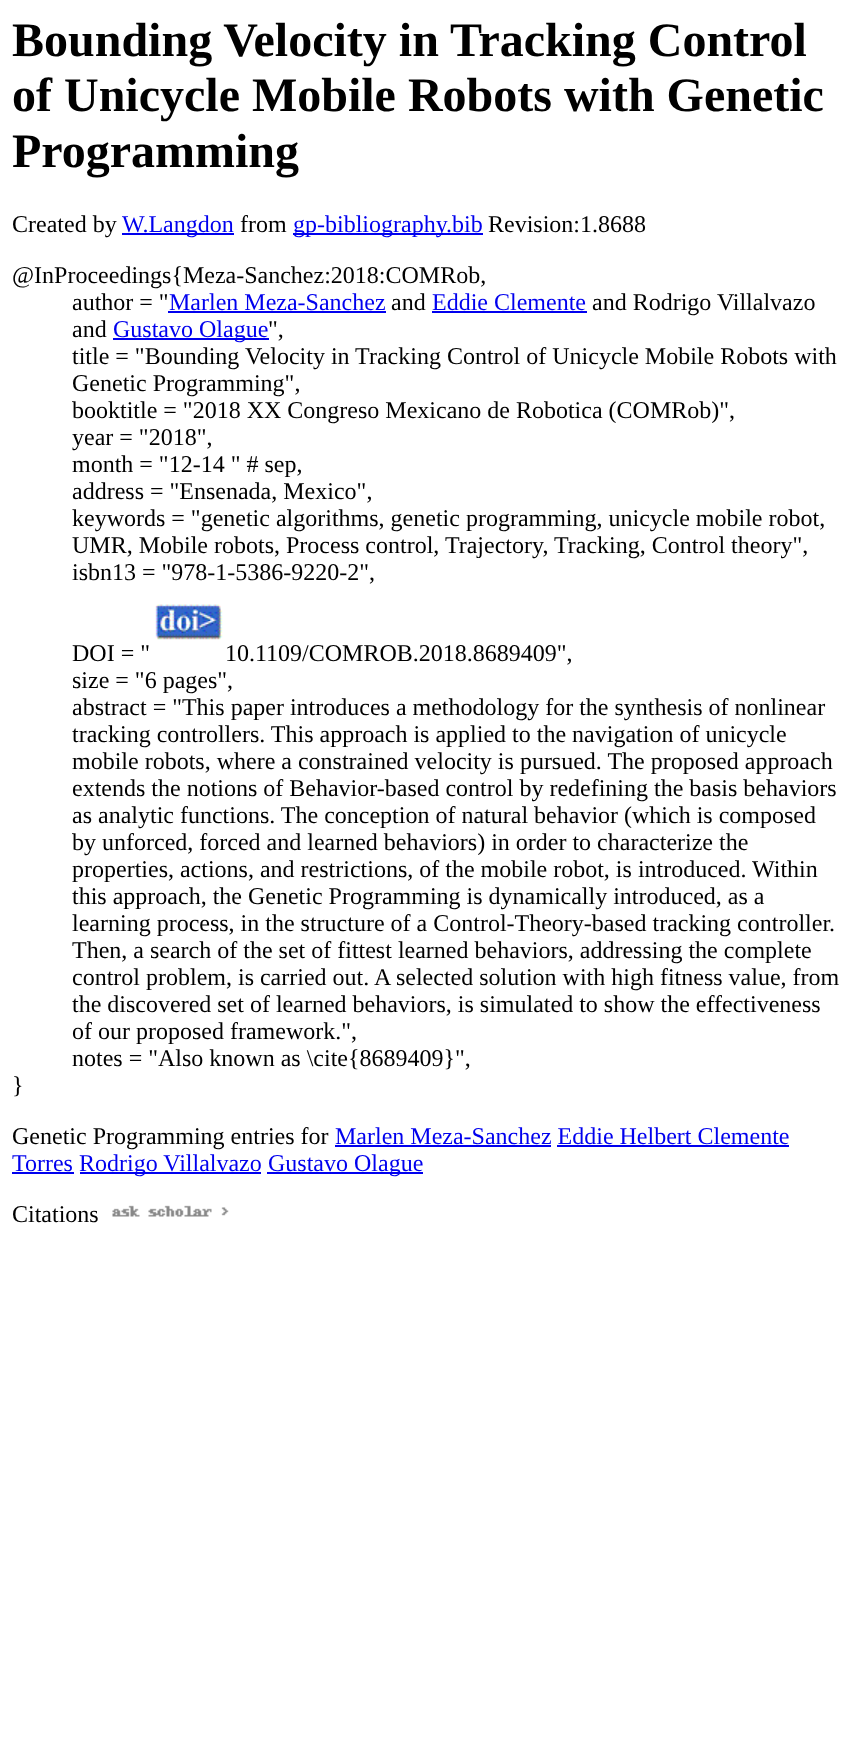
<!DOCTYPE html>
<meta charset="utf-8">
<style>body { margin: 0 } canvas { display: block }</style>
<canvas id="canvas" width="852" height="1743"></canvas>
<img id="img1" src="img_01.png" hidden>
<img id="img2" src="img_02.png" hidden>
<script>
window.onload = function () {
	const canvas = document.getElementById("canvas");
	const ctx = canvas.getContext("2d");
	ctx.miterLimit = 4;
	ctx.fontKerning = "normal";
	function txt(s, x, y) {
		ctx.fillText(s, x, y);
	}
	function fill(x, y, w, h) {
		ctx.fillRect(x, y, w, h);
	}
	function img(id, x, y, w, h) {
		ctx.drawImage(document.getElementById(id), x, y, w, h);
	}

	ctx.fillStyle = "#FFFFFF";
	fill(0, 0, 852, 1743);
	ctx.fillStyle = "#0000EE";
	fill(122, 233, 112, 2);
	fill(293, 233, 190, 2);
	fill(168, 311, 218, 2);
	fill(432, 311, 155, 2);
	fill(113, 338, 156, 2);
	img("img1", 155, 604, 68, 36);
	fill(335, 1145, 216, 2);
	fill(557, 1145, 232, 2);
	fill(12, 1172, 62, 2);
	fill(80, 1172, 181, 2);
	fill(267, 1172, 156, 2);
	img("img2", 112, 1205, 117, 12);
	ctx.font = "bold 48px Liberation Serif";
	ctx.fillStyle = "#000000";
	txt("Bounding Velocity in Tracking Control", 12, 56);
	txt("of Unicycle Mobile Robots with Genetic", 12, 111);
	txt("Programming", 12, 167);
	ctx.font = "24px Liberation Serif";
	txt("Created by", 12, 232);
	ctx.fillStyle = "#0000EE";
	txt("W.Langdon", 122, 232);
	ctx.fillStyle = "#000000";
	txt("from", 240, 232);
	ctx.fillStyle = "#0000EE";
	txt("gp-bibliography.bib", 293, 232);
	ctx.fillStyle = "#000000";
	txt("Revision:1.8688", 488, 232);
	txt("@InProceedings{Meza-Sanchez:2018:COMRob,", 12, 283);
	txt("author = \"", 72, 310);
	ctx.fillStyle = "#0000EE";
	txt("Marlen Meza-Sanchez", 169, 310);
	ctx.fillStyle = "#000000";
	txt("and", 391, 310);
	ctx.fillStyle = "#0000EE";
	txt("Eddie Clemente", 432, 310);
	ctx.fillStyle = "#000000";
	txt("and Rodrigo Villalvazo", 592, 310);
	txt("and", 72, 337);
	ctx.fillStyle = "#0000EE";
	txt("Gustavo Olague", 113, 337);
	ctx.fillStyle = "#000000";
	txt("\",", 268, 337);
	txt("title = \"Bounding Velocity in Tracking Control of Unicycle Mobile Robots with", 72, 364);
	txt("Genetic Programming\",", 72, 391);
	txt("booktitle = \"2018 XX Congreso Mexicano de Robotica (COMRob)\",", 72, 418);
	txt("year = \"2018\",", 72, 445);
	txt("month = \"12-14 \" # sep,", 72, 472);
	txt("address = \"Ensenada, Mexico\",", 72, 499);
	txt("keywords = \"genetic algorithms, genetic programming, unicycle mobile robot,", 72, 526);
	txt("UMR, Mobile robots, Process control, Trajectory, Tracking, Control theory\",", 72, 553);
	txt("isbn13 = \"978-1-5386-9220-2\",", 72, 580);
	txt("DOI = \"", 72, 661);
	txt("10.1109/COMROB.2018.8689409\",", 225, 661);
	txt("size = \"6 pages\",", 72, 688);
	txt("abstract = \"This paper introduces a methodology for the synthesis of nonlinear", 72, 715);
	txt("tracking controllers. This approach is applied to the navigation of unicycle", 72, 742);
	txt("mobile robots, where a constrained velocity is pursued. The proposed approach", 72, 769);
	txt("extends the notions of Behavior-based control by redefining the basis behaviors", 72, 796);
	txt("as analytic functions. The conception of natural behavior (which is composed", 72, 823);
	txt("by unforced, forced and learned behaviors) in order to characterize the", 72, 850);
	txt("properties, actions, and restrictions, of the mobile robot, is introduced. Within", 72, 877);
	txt("this approach, the Genetic Programming is dynamically introduced, as a", 72, 904);
	txt("learning process, in the structure of a Control-Theory-based tracking controller.", 72, 931);
	txt("Then, a search of the set of fittest learned behaviors, addressing the complete", 72, 958);
	txt("control problem, is carried out. A selected solution with high fitness value, from", 72, 985);
	txt("the discovered set of learned behaviors, is simulated to show the effectiveness", 72, 1012);
	txt("of our proposed framework.\",", 72, 1039);
	txt("notes = \"Also known as \\cite{8689409}\",", 72, 1066);
	txt("}", 12, 1093);
	txt("Genetic Programming entries for", 12, 1144);
	ctx.fillStyle = "#0000EE";
	txt("Marlen Meza-Sanchez Eddie Helbert Clemente", 335, 1144);
	txt("Torres", 12, 1171);
	txt("Rodrigo Villalvazo", 79, 1171);
	txt("Gustavo Olague", 268, 1171);
	ctx.fillStyle = "#000000";
	txt("Citations", 12, 1222);
};
</script>
